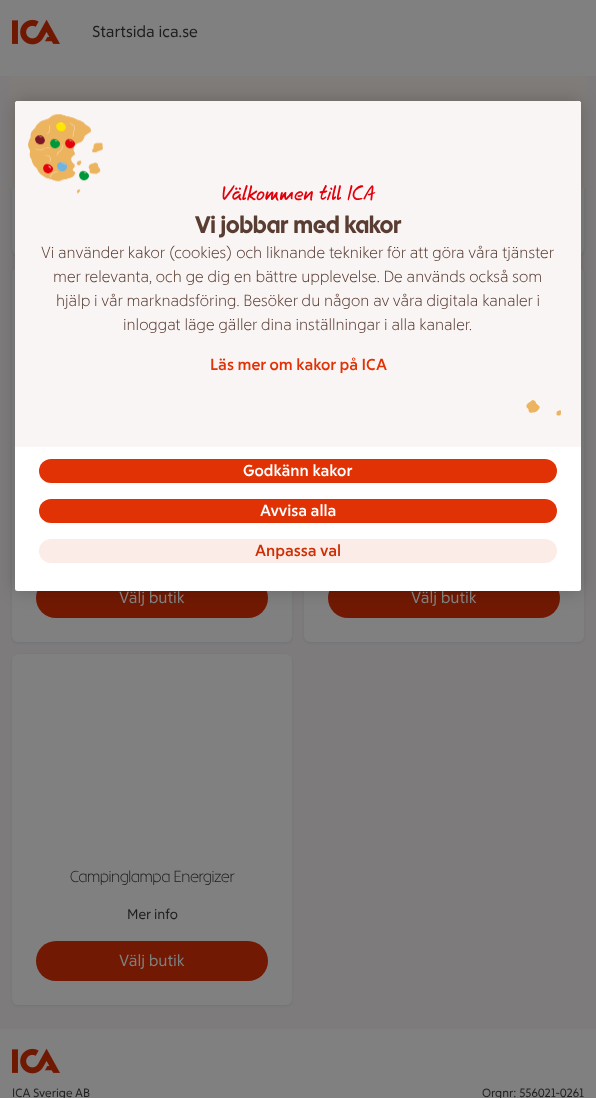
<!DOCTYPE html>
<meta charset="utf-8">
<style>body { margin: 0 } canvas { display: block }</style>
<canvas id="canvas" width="596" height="1098"></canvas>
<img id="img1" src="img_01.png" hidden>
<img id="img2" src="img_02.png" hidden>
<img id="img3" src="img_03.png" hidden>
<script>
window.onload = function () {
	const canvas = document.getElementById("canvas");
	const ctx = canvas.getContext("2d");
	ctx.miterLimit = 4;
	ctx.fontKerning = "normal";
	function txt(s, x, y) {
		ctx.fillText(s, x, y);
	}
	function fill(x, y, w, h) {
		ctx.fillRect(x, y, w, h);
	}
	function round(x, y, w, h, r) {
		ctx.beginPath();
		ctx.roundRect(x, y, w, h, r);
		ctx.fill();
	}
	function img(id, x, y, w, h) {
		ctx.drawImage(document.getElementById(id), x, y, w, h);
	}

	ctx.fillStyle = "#7D7B7B";
	fill(0, 0, 596, 1098);
	ctx.fillStyle = "#717478";
	ctx.filter = "blur(1px)";
	ctx.beginPath();
	ctx.roundRect(12, -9, 280, 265, 6);
	ctx.fill();
	ctx.filter = "none";
	ctx.fillStyle = "#808080";
	round(12, -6, 280, 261, 6);
	ctx.fillStyle = "#717478";
	ctx.filter = "blur(1px)";
	ctx.beginPath();
	ctx.roundRect(304, -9, 280, 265, 6);
	ctx.fill();
	ctx.filter = "none";
	ctx.fillStyle = "#808080";
	round(304, -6, 280, 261, 6);
	fill(0, 0, 596, 76);
	img("img1", 12, 19, 48, 26);
	ctx.fillStyle = "#7F7C7A";
	fill(10, 76, 576, 112);
	ctx.fillStyle = "#717478";
	ctx.filter = "blur(1px)";
	ctx.beginPath();
	ctx.roundRect(12, 268, 280, 375, 6);
	ctx.fill();
	ctx.filter = "none";
	ctx.fillStyle = "#808080";
	round(12, 267, 280, 375, 6);
	ctx.fillStyle = "#711903";
	round(36, 578, 232, 40, 20);
	ctx.fillStyle = "#717478";
	ctx.filter = "blur(1px)";
	ctx.beginPath();
	ctx.roundRect(304, 268, 280, 375, 6);
	ctx.fill();
	ctx.filter = "none";
	ctx.fillStyle = "#808080";
	round(304, 267, 280, 375, 6);
	ctx.fillStyle = "#711903";
	round(328, 578, 232, 40, 20);
	ctx.fillStyle = "#717478";
	ctx.filter = "blur(1px)";
	ctx.beginPath();
	ctx.roundRect(12, 655, 280, 351, 6);
	ctx.fill();
	ctx.filter = "none";
	ctx.fillStyle = "#808080";
	round(12, 654, 280, 351, 6);
	ctx.fillStyle = "#711903";
	round(36, 941, 232, 40, 20);
	ctx.fillStyle = "#808080";
	fill(0, 1029, 596, 69);
	img("img1", 12, 1048, 48, 26);
	ctx.fillStyle = "rgba(0, 0, 0, 0.2)";
	ctx.filter = "blur(9px)";
	ctx.beginPath();
	ctx.roundRect(15, 101, 566, 490, 2.5);
	ctx.fill();
	ctx.filter = "none";
	ctx.fillStyle = "#FFFFFF";
	round(15, 101, 566, 490, 2.5);
	ctx.fillStyle = "#F9F5F5";
	ctx.beginPath();
	ctx.roundRect(15, 101, 566, 346, [2.5, 2.5, 0, 0]);
	ctx.fill();
	img("img2", 28, 114, 75, 80);
	img("img3", 526, 400, 35, 16);
	ctx.fillStyle = "#E13205";
	round(39, 459, 518, 24, 12);
	round(39, 499, 518, 24, 12);
	ctx.fillStyle = "#FCECE7";
	round(39, 539, 518, 24, 12);
	ctx.font = "16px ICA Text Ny";
	ctx.fillStyle = "#1D1D1D";
	txt("Startsida ica.se", 92, 37);
	ctx.fillStyle = "#808080";
	txt("Välj butik", 119, 603);
	txt("Välj butik", 411, 603);
	ctx.font = "300 16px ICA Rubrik";
	ctx.fillStyle = "#1D1D1D";
	txt("Campinglampa Energizer", 70, 882);
	ctx.font = "14px ICA Text Ny";
	txt("Mer info", 127, 919);
	ctx.font = "16px ICA Text Ny";
	ctx.fillStyle = "#808080";
	txt("Välj butik", 119, 966);
	ctx.font = "12px ICA Text Ny";
	ctx.fillStyle = "#1D1D1D";
	txt("ICA Sverige AB", 12, 1097);
	txt("Orgnr: 556021-0261", 482, 1097);
	ctx.font = "italic 20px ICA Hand";
	ctx.fillStyle = "#E3000B";
	txt("Välkommen till ICA", 221, 200);
	ctx.font = "bold 24px ICA Rubrik";
	ctx.fillStyle = "#593D32";
	txt("Vi jobbar med kakor", 195, 233);
	ctx.font = "300 16px ICA Text Ny";
	txt("Vi använder kakor (cookies) och liknande tekniker för att göra våra tjänster", 41, 258);
	txt("mer relevanta, och ge dig en bättre upplevelse. De används också som", 53, 282);
	txt("hjälp i vår marknadsföring. Besöker du någon av våra digitala kanaler i", 56, 306);
	txt("inloggat läge gäller dina inställningar i alla kanaler.", 123, 330);
	ctx.font = "bold 16px ICA Text Ny";
	ctx.fillStyle = "#E13205";
	txt("Läs mer om kakor på ICA", 210, 370);
	ctx.fillStyle = "#FFFFFF";
	txt("Godkänn kakor", 243, 476);
	txt("Avvisa alla", 260, 516);
	ctx.fillStyle = "#CF2E05";
	txt("Anpassa val", 255, 556);
};
</script>
